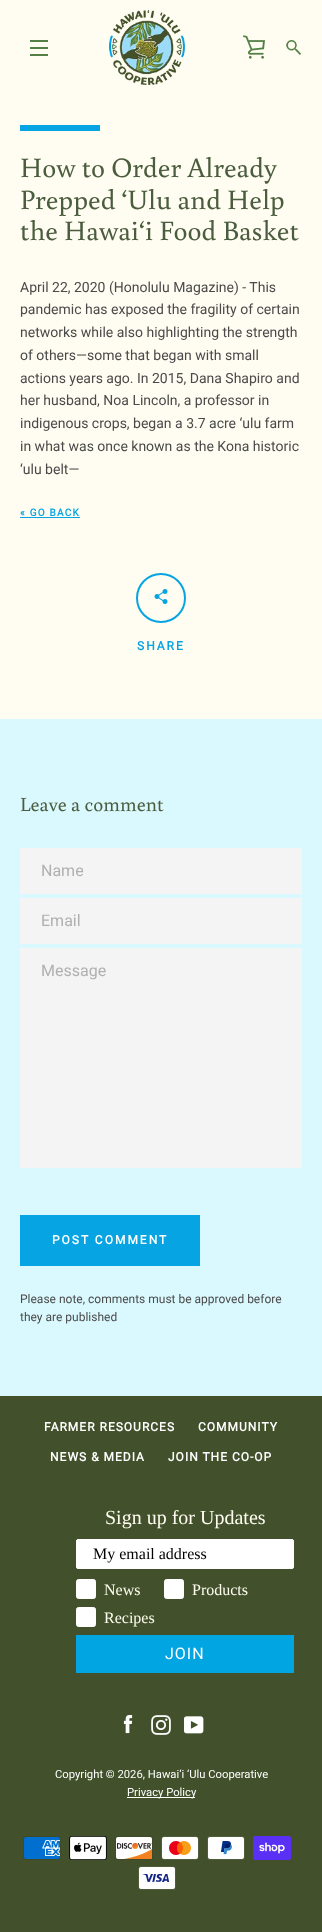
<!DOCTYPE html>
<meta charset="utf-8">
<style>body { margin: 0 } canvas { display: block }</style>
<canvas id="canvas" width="322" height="1932"></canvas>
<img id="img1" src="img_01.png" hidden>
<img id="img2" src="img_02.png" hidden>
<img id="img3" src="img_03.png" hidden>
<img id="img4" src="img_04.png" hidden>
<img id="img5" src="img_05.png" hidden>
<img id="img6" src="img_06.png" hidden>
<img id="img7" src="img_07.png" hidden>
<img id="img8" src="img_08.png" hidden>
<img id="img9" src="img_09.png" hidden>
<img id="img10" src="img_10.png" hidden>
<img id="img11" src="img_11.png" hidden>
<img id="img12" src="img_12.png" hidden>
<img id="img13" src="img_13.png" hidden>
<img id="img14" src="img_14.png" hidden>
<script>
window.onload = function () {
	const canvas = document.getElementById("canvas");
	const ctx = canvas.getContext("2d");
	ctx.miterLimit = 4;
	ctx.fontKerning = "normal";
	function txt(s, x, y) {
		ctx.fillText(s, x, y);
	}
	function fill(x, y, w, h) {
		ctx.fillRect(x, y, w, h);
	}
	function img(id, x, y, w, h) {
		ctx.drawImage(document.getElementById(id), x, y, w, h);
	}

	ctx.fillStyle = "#FFFDF1";
	fill(0, 0, 322, 1932);
	ctx.fillStyle = "#548045";
	fill(30, 40, 18, 2);
	fill(30, 47, 18, 2);
	fill(30, 54, 18, 2);
	img("img1", 109, 10, 76, 75);
	img("img2", 243, 35, 22, 24);
	img("img3", 286, 40, 16, 15);
	ctx.fillStyle = "#06A4E3";
	fill(20, 125, 80, 6);
	fill(20, 517, 60, 1);
	ctx.beginPath();
	ctx.arc(161, 598, 24, 0, Math.PI * 2);
	ctx.strokeStyle = "#06A4E3";
	ctx.lineWidth = 2;
	ctx.stroke();
	img("img4", 154, 589, 14, 15);
	ctx.fillStyle = "#DAF9FF";
	fill(0, 719, 322, 677);
	ctx.fillStyle = "#F3F4F3";
	fill(20, 848, 282, 46);
	fill(20, 898, 282, 46);
	fill(20, 948, 282, 220);
	ctx.fillStyle = "#06A4E3";
	fill(20, 1215, 180, 51);
	ctx.fillStyle = "#42512C";
	fill(0, 1396, 322, 536);
	ctx.fillStyle = "#FFFFFF";
	ctx.beginPath();
	ctx.roundRect(76.5, 1539.5, 217, 29, 1.5);
	ctx.fill();
	ctx.strokeStyle = "#FFFFFF";
	ctx.lineWidth = 1;
	ctx.stroke();
	ctx.beginPath();
	ctx.roundRect(76.5, 1579.5, 19, 19, 2);
	ctx.fill();
	ctx.stroke();
	ctx.beginPath();
	ctx.roundRect(164.5, 1579.5, 19, 19, 2);
	ctx.fill();
	ctx.stroke();
	ctx.beginPath();
	ctx.roundRect(76.5, 1607.5, 19, 19, 2);
	ctx.fill();
	ctx.stroke();
	ctx.fillStyle = "#00A5E2";
	fill(76, 1635, 218, 38);
	img("img5", 123, 1715, 10, 19);
	img("img6", 151, 1715, 20, 20);
	img("img7", 184, 1716, 20, 18);
	ctx.fillStyle = "#FFFFFF";
	fill(127, 1797, 68, 1);
	img("img8", 23, 1836, 38, 24);
	img("img9", 69, 1836, 38, 24);
	img("img10", 115, 1836, 38, 24);
	img("img11", 161, 1836, 38, 24);
	img("img12", 207, 1836, 38, 24);
	img("img13", 253, 1836, 38, 24);
	img("img14", 138, 1866, 38, 24);
	ctx.font = "28px Buenard";
	ctx.fillStyle = "#4B5D3E";
	txt("How to Order Already", 20, 177);
	txt("Prepped ‘Ulu and Help", 20, 209);
	txt("the Hawai‘i Food Basket", 20, 240);
	ctx.font = "14px Roboto";
	ctx.fillStyle = "#4A4A4A";
	txt("April 22, 2020 (Honolulu Magazine) - This", 20, 292);
	txt("pandemic has exposed the fragility of certain", 20, 314);
	txt("networks while also highlighting the strength", 20, 337);
	txt("of others—some that began with small", 20, 360);
	txt("actions years ago. In 2015, Dana Shapiro and", 20, 383);
	txt("her husband, Noa Lincoln, a professor in", 20, 405);
	txt("indigenous crops, began a 3.7 acre ‘ulu farm", 20, 428);
	txt("in what was once known as the Kona historic", 20, 451);
	txt("‘ulu belt—", 20, 474);
	ctx.letterSpacing = "1.25px";
	ctx.font = "bold 10px Roboto";
	ctx.fillStyle = "#06A4E3";
	txt("« GO BACK", 20, 516);
	ctx.letterSpacing = "2px";
	ctx.font = "bold 12px Roboto";
	txt("SHARE", 137, 650);
	ctx.letterSpacing = "0px";
	ctx.font = "20px Buenard";
	ctx.fillStyle = "#4B5D3E";
	txt("Leave a comment", 20, 811);
	ctx.font = "16px Roboto";
	ctx.fillStyle = "#AFB0AF";
	txt("Name", 41, 876);
	txt("Email", 41, 926);
	txt("Message", 41, 976);
	ctx.letterSpacing = "2px";
	ctx.font = "bold 12px Roboto";
	ctx.fillStyle = "#FFFFFF";
	txt("POST COMMENT", 52, 1244);
	ctx.letterSpacing = "0px";
	ctx.font = "12px Roboto";
	ctx.fillStyle = "#4A4A4A";
	txt("Please note, comments must be approved before", 20, 1303);
	txt("they are published", 20, 1321);
	ctx.letterSpacing = "1px";
	ctx.font = "bold 12px Roboto";
	ctx.fillStyle = "#FFFFFF";
	txt("FARMER RESOURCES", 44, 1431);
	txt("COMMUNITY", 198, 1431);
	txt("NEWS & MEDIA", 50, 1461);
	txt("JOIN THE CO-OP", 168, 1461);
	ctx.letterSpacing = "0px";
	ctx.font = "20px Liberation Serif";
	ctx.fillStyle = "#FFFDF1";
	txt("Sign up for Updates", 105, 1524);
	ctx.font = "16px Liberation Serif";
	ctx.fillStyle = "#000000";
	txt("My email address", 93, 1559);
	ctx.fillStyle = "#FFFDF1";
	txt("News", 104, 1595);
	txt("Products", 192, 1595);
	txt("Recipes", 104, 1623);
	ctx.letterSpacing = "1px";
	ctx.font = "16px Roboto";
	ctx.fillStyle = "#FFFFFF";
	txt("JOIN", 165, 1659);
	ctx.letterSpacing = "0px";
	ctx.font = "11.25px Roboto";
	txt("Copyright © 2026, Hawai‘i ‘Ulu Cooperative", 55, 1778);
	txt("Privacy Policy", 127, 1796);
};
</script>
